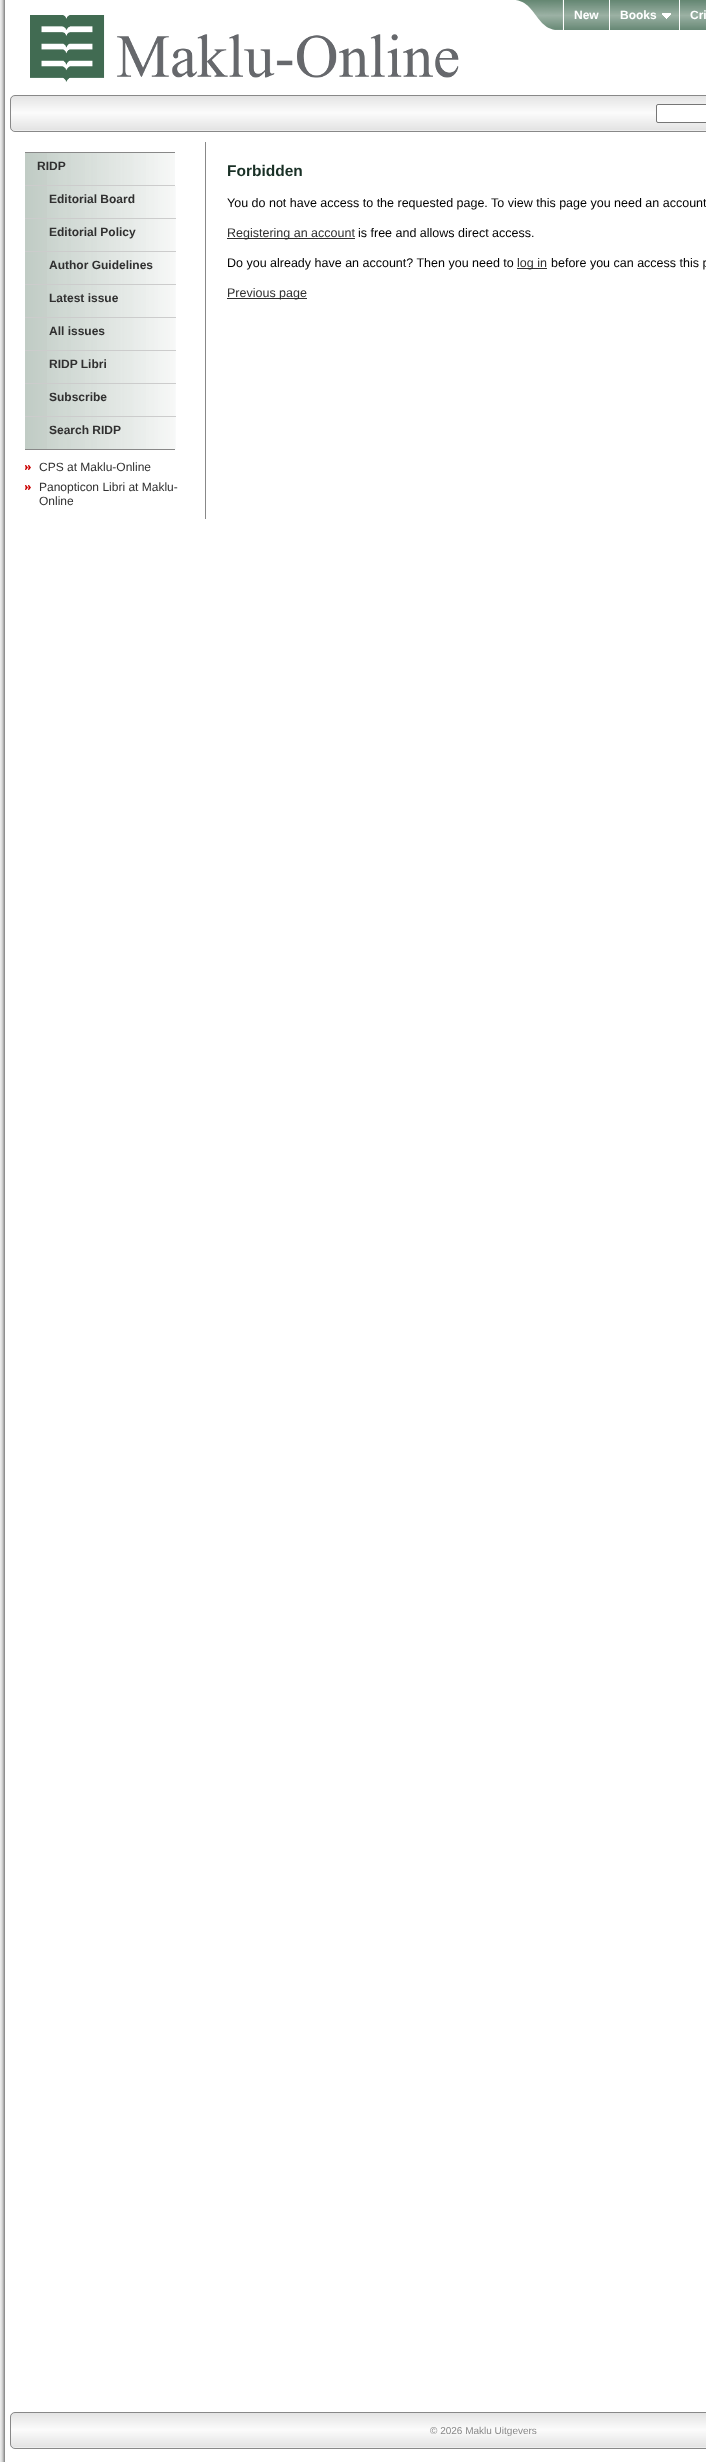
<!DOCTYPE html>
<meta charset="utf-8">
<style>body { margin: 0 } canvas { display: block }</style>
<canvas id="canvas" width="706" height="2462"></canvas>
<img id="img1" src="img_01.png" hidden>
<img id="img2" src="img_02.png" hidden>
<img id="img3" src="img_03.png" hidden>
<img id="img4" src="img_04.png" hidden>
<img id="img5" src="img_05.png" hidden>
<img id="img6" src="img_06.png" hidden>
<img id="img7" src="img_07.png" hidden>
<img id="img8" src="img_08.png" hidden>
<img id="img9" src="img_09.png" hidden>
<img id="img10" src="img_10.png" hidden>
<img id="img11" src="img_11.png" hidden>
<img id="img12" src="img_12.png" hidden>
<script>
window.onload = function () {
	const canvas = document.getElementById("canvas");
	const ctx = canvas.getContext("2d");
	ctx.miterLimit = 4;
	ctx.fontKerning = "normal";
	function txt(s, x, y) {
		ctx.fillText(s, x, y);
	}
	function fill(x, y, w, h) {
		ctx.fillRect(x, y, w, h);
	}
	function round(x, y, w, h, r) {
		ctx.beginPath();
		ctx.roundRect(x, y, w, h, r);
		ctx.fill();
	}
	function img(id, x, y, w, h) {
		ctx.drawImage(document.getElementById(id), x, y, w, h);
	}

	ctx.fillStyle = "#FFFFFF";
	fill(0, 0, 706, 2462);
	img("img1", 0, 0, 5, 2462);
	img("img2", 516, 0, 47, 30);
	img("img3", 564, 0, 45, 30);
	img("img4", 610, 0, 69, 30);
	img("img5", 662, 13, 9, 6);
	img("img6", 680, 0, 26, 30);
	img("img7", 30, 15, 429, 67);
	ctx.fillStyle = "#EEEEEE";
	round(10, 95, 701, 37, 5);
	img("img8", 10, 96, 696, 34);
	ctx.beginPath();
	ctx.roundRect(10.5, 95.5, 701, 36, 4.5);
	ctx.strokeStyle = "#888888";
	ctx.stroke();
	ctx.fillStyle = "#FFFFFF";
	ctx.beginPath();
	ctx.roundRect(656.5, 104.5, 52, 18, 1.5);
	ctx.fill();
	ctx.strokeStyle = "#767676";
	ctx.stroke();
	ctx.fillStyle = "#888888";
	fill(205, 142, 1, 377);
	ctx.fillStyle = "#EEEEEE";
	fill(25, 153, 22, 296);
	img("img9", 47, 153, 128, 296);
	ctx.fillStyle = "#888888";
	fill(25, 152, 150, 1);
	fill(25, 449, 150, 1);
	img("img10", 25, 153, 150, 32);
	ctx.fillStyle = "#CCCCCC";
	fill(25, 185, 150, 1);
	img("img11", 25, 186, 151, 32);
	fill(25, 218, 151, 1);
	img("img11", 25, 219, 151, 32);
	fill(25, 251, 151, 1);
	img("img11", 25, 252, 151, 32);
	fill(25, 284, 151, 1);
	img("img11", 25, 285, 151, 32);
	fill(25, 317, 151, 1);
	img("img11", 25, 318, 151, 32);
	fill(25, 350, 151, 1);
	img("img11", 25, 351, 151, 32);
	fill(25, 383, 151, 1);
	img("img11", 25, 384, 151, 32);
	fill(25, 416, 151, 1);
	img("img11", 25, 417, 151, 32);
	img("img12", 25, 465, 6, 5);
	img("img12", 25, 485, 6, 5);
	ctx.fillStyle = "#303030";
	fill(227, 238, 128, 1);
	fill(517, 268, 30, 1);
	fill(227, 298, 80, 1);
	ctx.fillStyle = "#EEEEEE";
	round(10, 2412, 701, 37, 5);
	img("img8", 10, 2413, 696, 34);
	ctx.beginPath();
	ctx.roundRect(10.5, 2412.5, 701, 36, 4.5);
	ctx.strokeStyle = "#888888";
	ctx.stroke();
	ctx.font = "bold 12px Liberation Sans";
	ctx.fillStyle = "#FFFFFF";
	txt("New", 574, 19);
	txt("Books", 620, 19);
	txt("Cri", 690, 19);
	ctx.fillStyle = "#303030";
	txt("RIDP", 37, 170);
	txt("Editorial Board", 49, 203);
	txt("Editorial Policy", 49, 236);
	txt("Author Guidelines", 49, 269);
	txt("Latest issue", 49, 302);
	txt("All issues", 49, 335);
	txt("RIDP Libri", 49, 368);
	txt("Subscribe", 49, 401);
	txt("Search RIDP", 49, 434);
	ctx.font = "12px Liberation Sans";
	txt("CPS at Maklu-Online", 39, 471);
	txt("Panopticon Libri at Maklu-", 39, 491);
	txt("Online", 39, 505);
	ctx.font = "bold 15.5px Liberation Sans";
	ctx.fillStyle = "#193026";
	txt("Forbidden", 227, 176);
	ctx.font = "12.5px Liberation Sans";
	ctx.fillStyle = "#000000";
	txt("You do not have access to the requested page. To view this page you need an account", 227, 207);
	ctx.fillStyle = "#303030";
	txt("Registering an account", 227, 237);
	ctx.fillStyle = "#000000";
	txt("is free and allows direct access.", 358, 237);
	txt("Do you already have an account? Then you need to", 227, 267);
	ctx.fillStyle = "#303030";
	txt("log in", 517, 267);
	ctx.fillStyle = "#000000";
	txt("before you can access this p", 551, 267);
	ctx.fillStyle = "#303030";
	txt("Previous page", 227, 297);
	ctx.font = "10px Liberation Sans";
	ctx.fillStyle = "#888888";
	txt("© 2026 Maklu Uitgevers", 430, 2434);
};
</script>
